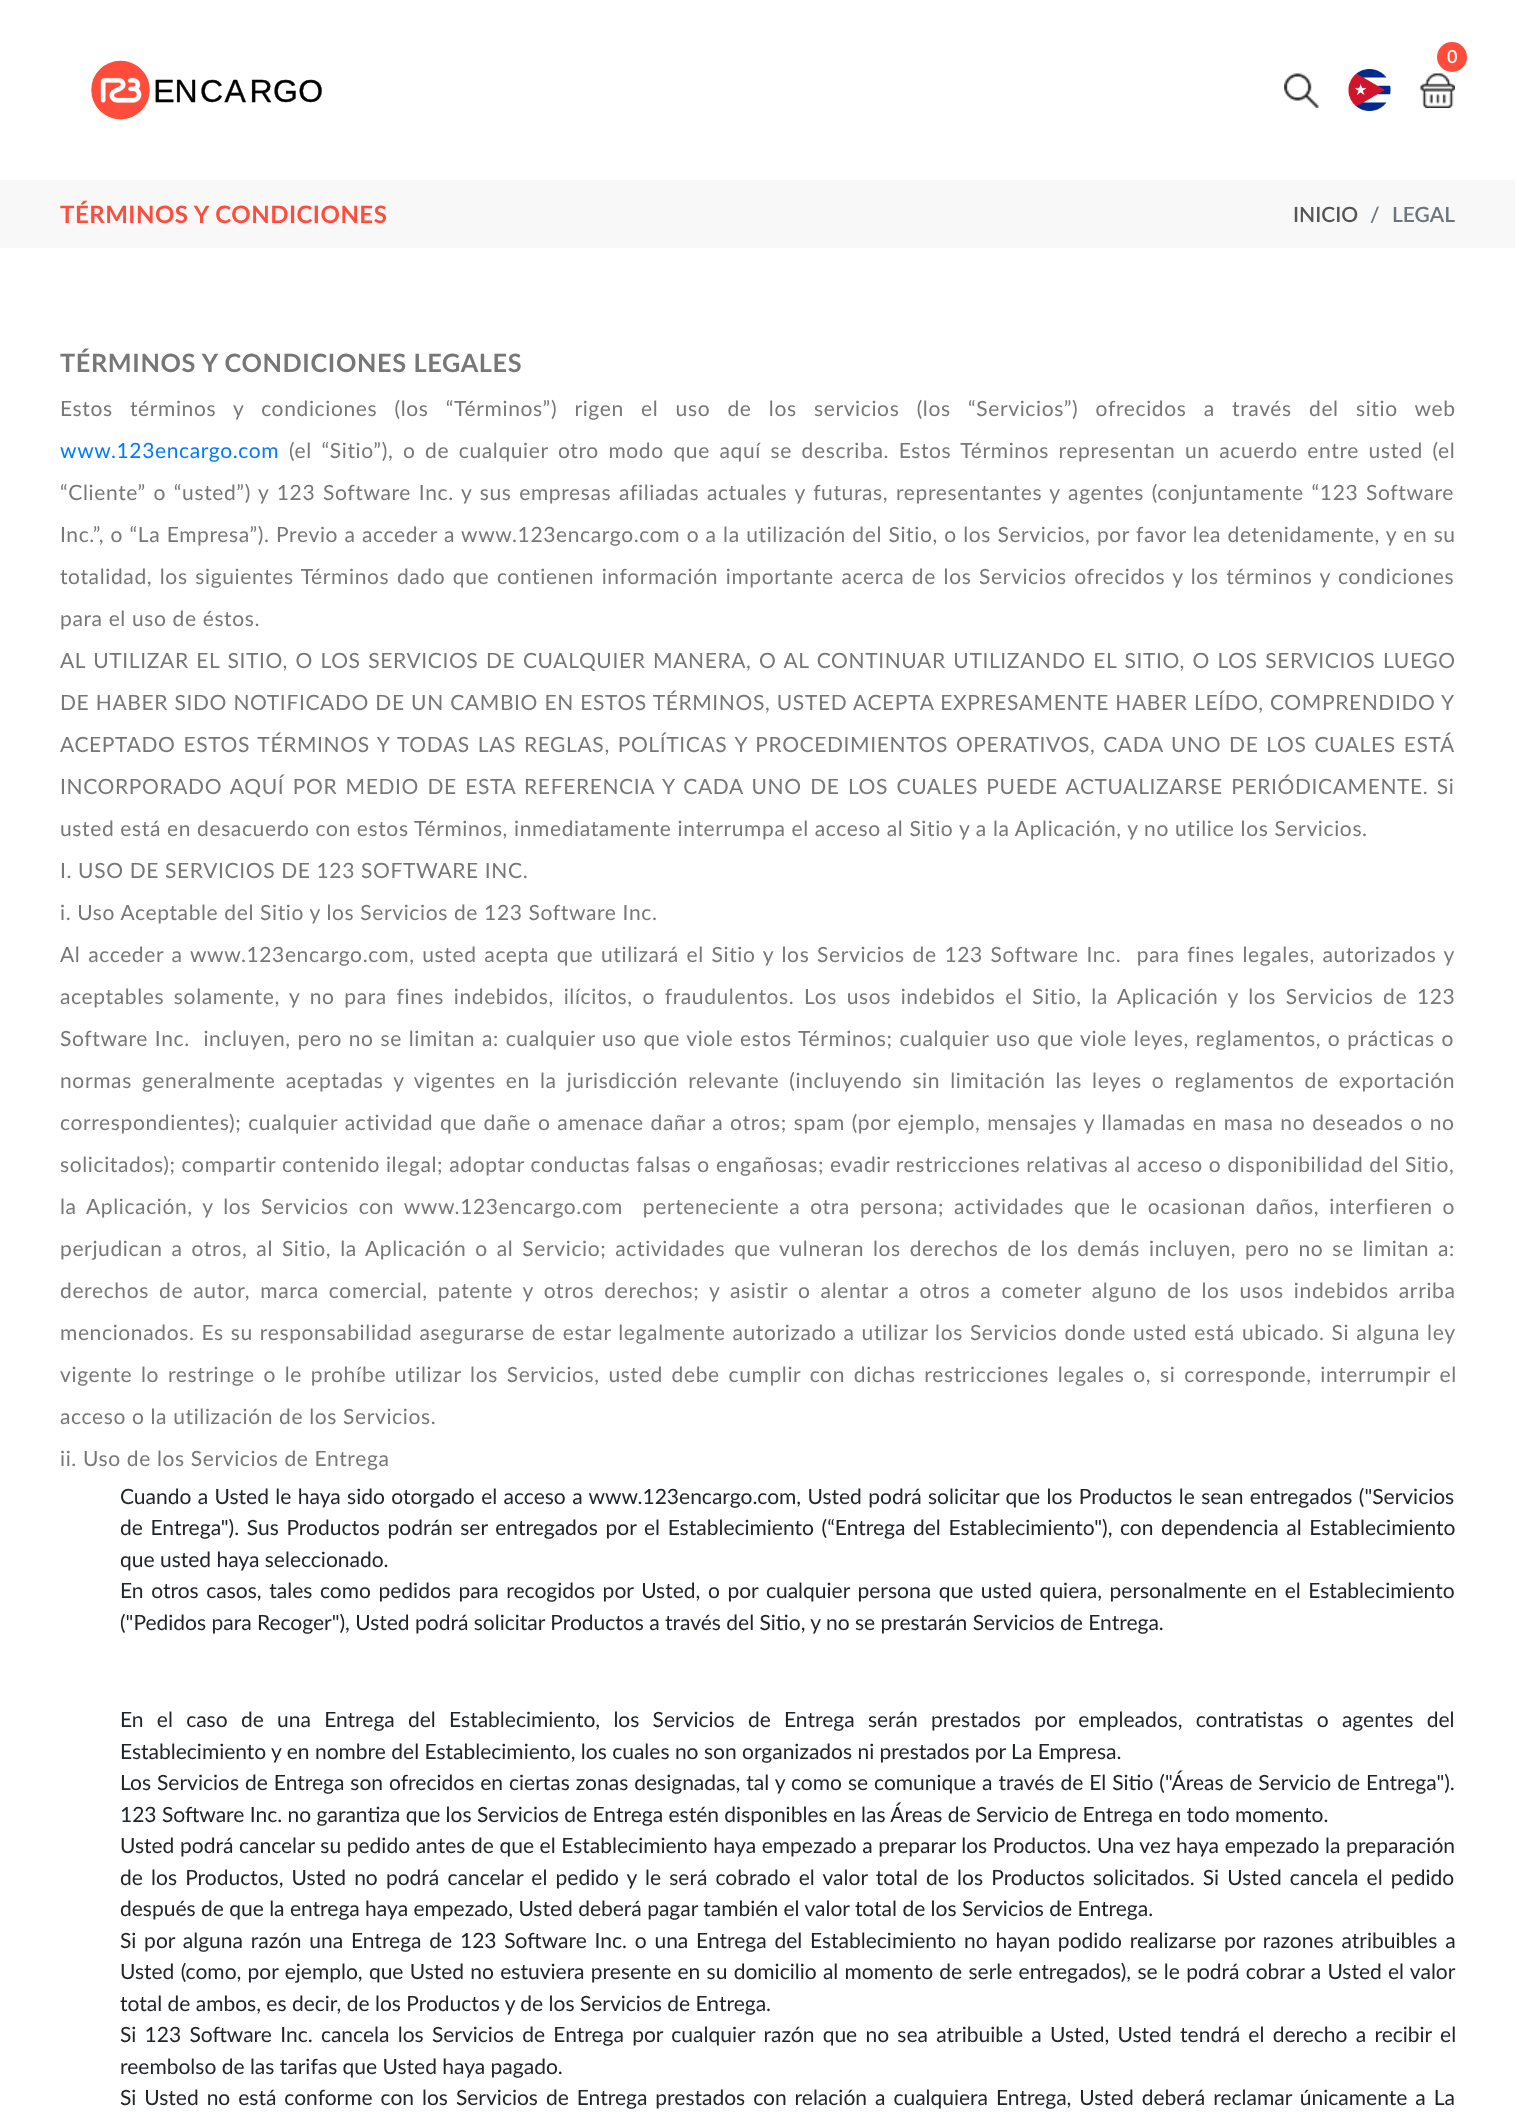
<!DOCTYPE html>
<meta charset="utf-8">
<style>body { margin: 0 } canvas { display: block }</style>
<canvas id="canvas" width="1515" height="2125"></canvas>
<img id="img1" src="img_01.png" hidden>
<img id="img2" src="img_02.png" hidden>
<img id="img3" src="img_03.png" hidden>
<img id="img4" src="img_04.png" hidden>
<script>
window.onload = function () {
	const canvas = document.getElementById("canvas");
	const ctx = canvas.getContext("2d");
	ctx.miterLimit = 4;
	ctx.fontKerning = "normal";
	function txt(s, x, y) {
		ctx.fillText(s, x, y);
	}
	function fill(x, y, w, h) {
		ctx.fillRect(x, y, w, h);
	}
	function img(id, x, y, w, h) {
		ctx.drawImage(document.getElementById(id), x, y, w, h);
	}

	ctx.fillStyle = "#FFFFFF";
	fill(0, 0, 1515, 2125);
	ctx.fillStyle = "#FF4C3B";
	ctx.beginPath();
	ctx.arc(1452, 57, 15, 0, Math.PI * 2);
	ctx.fill();
	img("img1", 1420, 73, 35, 35);
	img("img2", 1284, 73, 35, 35);
	img("img3", 1348, 69, 43, 42);
	img("img4", 91, 60, 231, 60);
	ctx.fillStyle = "#F8F8F8";
	fill(0, 180, 1515, 68);
	ctx.font = "600 18px Lato";
	ctx.fillStyle = "#FFFFFF";
	txt("0", 1447, 63);
	ctx.letterSpacing = "0.5px";
	ctx.font = "bold 24px Lato";
	ctx.fillStyle = "#FF4C3B";
	txt("TÉRMINOS Y CONDICIONES", 60, 223);
	ctx.letterSpacing = "0px";
	ctx.font = "600 21px Lato";
	ctx.fillStyle = "#555555";
	txt("INICIO", 1293, 222);
	ctx.fillStyle = "#6C757D";
	txt("/", 1370, 222);
	txt("LEGAL", 1392, 222);
	ctx.letterSpacing = "0.63px";
	ctx.font = "bold 25.25px Lato";
	ctx.fillStyle = "#777777";
	txt("TÉRMINOS Y CONDICIONES LEGALES", 60, 372);
	ctx.wordSpacing = "11.25px";
	ctx.font = "21px Lato";
	txt("Estos términos y condiciones (los “Términos”) rigen el uso de los servicios (los “Servicios”) ofrecidos a través del sitio web", 60, 416);
	ctx.wordSpacing = "0px";
	ctx.fillStyle = "#007BFF";
	txt("www.123encargo.com", 60, 458);
	ctx.wordSpacing = "3.6px";
	ctx.fillStyle = "#777777";
	txt("(el “Sitio”), o de cualquier otro modo que aquí se describa. Estos Términos representan un acuerdo entre usted (el", 289, 458);
	ctx.wordSpacing = "1.75px";
	txt("“Cliente” o “usted”) y 123 Software Inc. y sus empresas afiliadas actuales y futuras, representantes y agentes (conjuntamente “123 Software", 60, 500);
	ctx.wordSpacing = "0.4px";
	txt("Inc.”, o “La Empresa”). Previo a acceder a www.123encargo.com o a la utilización del Sitio, o los Servicios, por favor lea detenidamente, y en su", 60, 542);
	ctx.wordSpacing = "1.6px";
	txt("totalidad, los siguientes Términos dado que contienen información importante acerca de los Servicios ofrecidos y los términos y condiciones", 60, 584);
	ctx.wordSpacing = "0px";
	txt("para el uso de éstos.", 60, 626);
	ctx.wordSpacing = "1.6px";
	txt("AL UTILIZAR EL SITIO, O LOS SERVICIOS DE CUALQUIER MANERA, O AL CONTINUAR UTILIZANDO EL SITIO, O LOS SERVICIOS LUEGO", 60, 668);
	ctx.wordSpacing = "0.4px";
	txt("DE HABER SIDO NOTIFICADO DE UN CAMBIO EN ESTOS TÉRMINOS, USTED ACEPTA EXPRESAMENTE HABER LEÍDO, COMPRENDIDO Y", 60, 710);
	ctx.wordSpacing = "1.9px";
	txt("ACEPTADO ESTOS TÉRMINOS Y TODAS LAS REGLAS, POLÍTICAS Y PROCEDIMIENTOS OPERATIVOS, CADA UNO DE LOS CUALES ESTÁ", 60, 752);
	ctx.wordSpacing = "2.4px";
	txt("INCORPORADO AQUÍ POR MEDIO DE ESTA REFERENCIA Y CADA UNO DE LOS CUALES PUEDE ACTUALIZARSE PERIÓDICAMENTE. Si", 60, 794);
	ctx.wordSpacing = "0px";
	txt("usted está en desacuerdo con estos Términos, inmediatamente interrumpa el acceso al Sitio y a la Aplicación, y no utilice los Servicios.", 60, 836);
	txt("I. USO DE SERVICIOS DE 123 SOFTWARE INC.", 60, 878);
	txt("i. Uso Aceptable del Sitio y los Servicios de 123 Software Inc.", 60, 920);
	ctx.wordSpacing = "1.75px";
	txt("Al acceder a www.123encargo.com, usted acepta que utilizará el Sitio y los Servicios de 123 Software Inc.  para fines legales, autorizados y", 60, 962);
	ctx.wordSpacing = "3.7px";
	txt("aceptables solamente, y no para fines indebidos, ilícitos, o fraudulentos. Los usos indebidos el Sitio, la Aplicación y los Servicios de 123", 60, 1004);
	ctx.wordSpacing = "0.8px";
	txt("Software Inc.  incluyen, pero no se limitan a: cualquier uso que viole estos Términos; cualquier uso que viole leyes, reglamentos, o prácticas o", 60, 1046);
	ctx.wordSpacing = "4.1px";
	txt("normas generalmente aceptadas y vigentes en la jurisdicción relevante (incluyendo sin limitación las leyes o reglamentos de exportación", 60, 1088);
	ctx.wordSpacing = "0.9px";
	txt("correspondientes); cualquier actividad que dañe o amenace dañar a otros; spam (por ejemplo, mensajes y llamadas en masa no deseados o no", 60, 1130);
	ctx.wordSpacing = "0px";
	txt("solicitados); compartir contenido ilegal; adoptar conductas falsas o engañosas; evadir restricciones relativas al acceso o disponibilidad del Sitio,", 60, 1172);
	ctx.wordSpacing = "4px";
	txt("la Aplicación, y los Servicios con www.123encargo.com  perteneciente a otra persona; actividades que le ocasionan daños, interfieren o", 60, 1214);
	ctx.wordSpacing = "2.9px";
	txt("perjudican a otros, al Sitio, la Aplicación o al Servicio; actividades que vulneran los derechos de los demás incluyen, pero no se limitan a:", 60, 1256);
	ctx.wordSpacing = "4.1px";
	txt("derechos de autor, marca comercial, patente y otros derechos; y asistir o alentar a otros a cometer alguno de los usos indebidos arriba", 60, 1298);
	ctx.wordSpacing = "1px";
	txt("mencionados. Es su responsabilidad asegurarse de estar legalmente autorizado a utilizar los Servicios donde usted está ubicado. Si alguna ley", 60, 1340);
	ctx.wordSpacing = "2.75px";
	txt("vigente lo restringe o le prohíbe utilizar los Servicios, usted debe cumplir con dichas restricciones legales o, si corresponde, interrumpir el", 60, 1382);
	ctx.wordSpacing = "0px";
	txt("acceso o la utilización de los Servicios.", 60, 1424);
	txt("ii. Uso de los Servicios de Entrega", 60, 1466);
	ctx.letterSpacing = "0px";
	ctx.wordSpacing = "1px";
	ctx.fillStyle = "#212529";
	txt("Cuando a Usted le haya sido otorgado el acceso a www.123encargo.com, Usted podrá solicitar que los Productos le sean entregados (\"Servicios", 120, 1504);
	ctx.wordSpacing = "2.25px";
	txt("de Entrega\"). Sus Productos podrán ser entregados por el Establecimiento (“Entrega del Establecimiento\"), con dependencia al Establecimiento", 120, 1535);
	ctx.wordSpacing = "0px";
	txt("que usted haya seleccionado.", 120, 1567);
	ctx.wordSpacing = "2.25px";
	txt("En otros casos, tales como pedidos para recogidos por Usted, o por cualquier persona que usted quiera, personalmente en el Establecimiento", 120, 1598);
	ctx.wordSpacing = "0px";
	txt("(\"Pedidos para Recoger\"), Usted podrá solicitar Productos a través del Sitio, y no se prestarán Servicios de Entrega.", 120, 1630);
	ctx.wordSpacing = "7.9px";
	txt("En el caso de una Entrega del Establecimiento, los Servicios de Entrega serán prestados por empleados, contratistas o agentes del", 120, 1727);
	ctx.wordSpacing = "0px";
	txt("Establecimiento y en nombre del Establecimiento, los cuales no son organizados ni prestados por La Empresa.", 120, 1759);
	ctx.wordSpacing = "0.6px";
	txt("Los Servicios de Entrega son ofrecidos en ciertas zonas designadas, tal y como se comunique a través de El Sitio (\"Áreas de Servicio de Entrega\").", 120, 1790);
	ctx.wordSpacing = "0px";
	txt("123 Software Inc. no garantiza que los Servicios de Entrega estén disponibles en las Áreas de Servicio de Entrega en todo momento.", 120, 1822);
	ctx.wordSpacing = "0.25px";
	txt("Usted podrá cancelar su pedido antes de que el Establecimiento haya empezado a preparar los Productos. Una vez haya empezado la preparación", 120, 1853);
	ctx.wordSpacing = "2.8px";
	txt("de los Productos, Usted no podrá cancelar el pedido y le será cobrado el valor total de los Productos solicitados. Si Usted cancela el pedido", 120, 1885);
	ctx.wordSpacing = "0px";
	txt("después de que la entrega haya empezado, Usted deberá pagar también el valor total de los Servicios de Entrega.", 120, 1916);
	ctx.wordSpacing = "2.4px";
	txt("Si por alguna razón una Entrega de 123 Software Inc. o una Entrega del Establecimiento no hayan podido realizarse por razones atribuibles a", 120, 1948);
	ctx.wordSpacing = "0.9px";
	txt("Usted (como, por ejemplo, que Usted no estuviera presente en su domicilio al momento de serle entregados), se le podrá cobrar a Usted el valor", 120, 1979);
	ctx.wordSpacing = "0px";
	txt("total de ambos, es decir, de los Productos y de los Servicios de Entrega.", 120, 2011);
	ctx.wordSpacing = "2.9px";
	txt("Si 123 Software Inc. cancela los Servicios de Entrega por cualquier razón que no sea atribuible a Usted, Usted tendrá el derecho a recibir el", 120, 2042);
	ctx.wordSpacing = "0px";
	txt("reembolso de las tarifas que Usted haya pagado.", 120, 2074);
	ctx.wordSpacing = "2.6px";
	txt("Si Usted no está conforme con los Servicios de Entrega prestados con relación a cualquiera Entrega, Usted deberá reclamar únicamente a La", 120, 2105);
};
</script>
